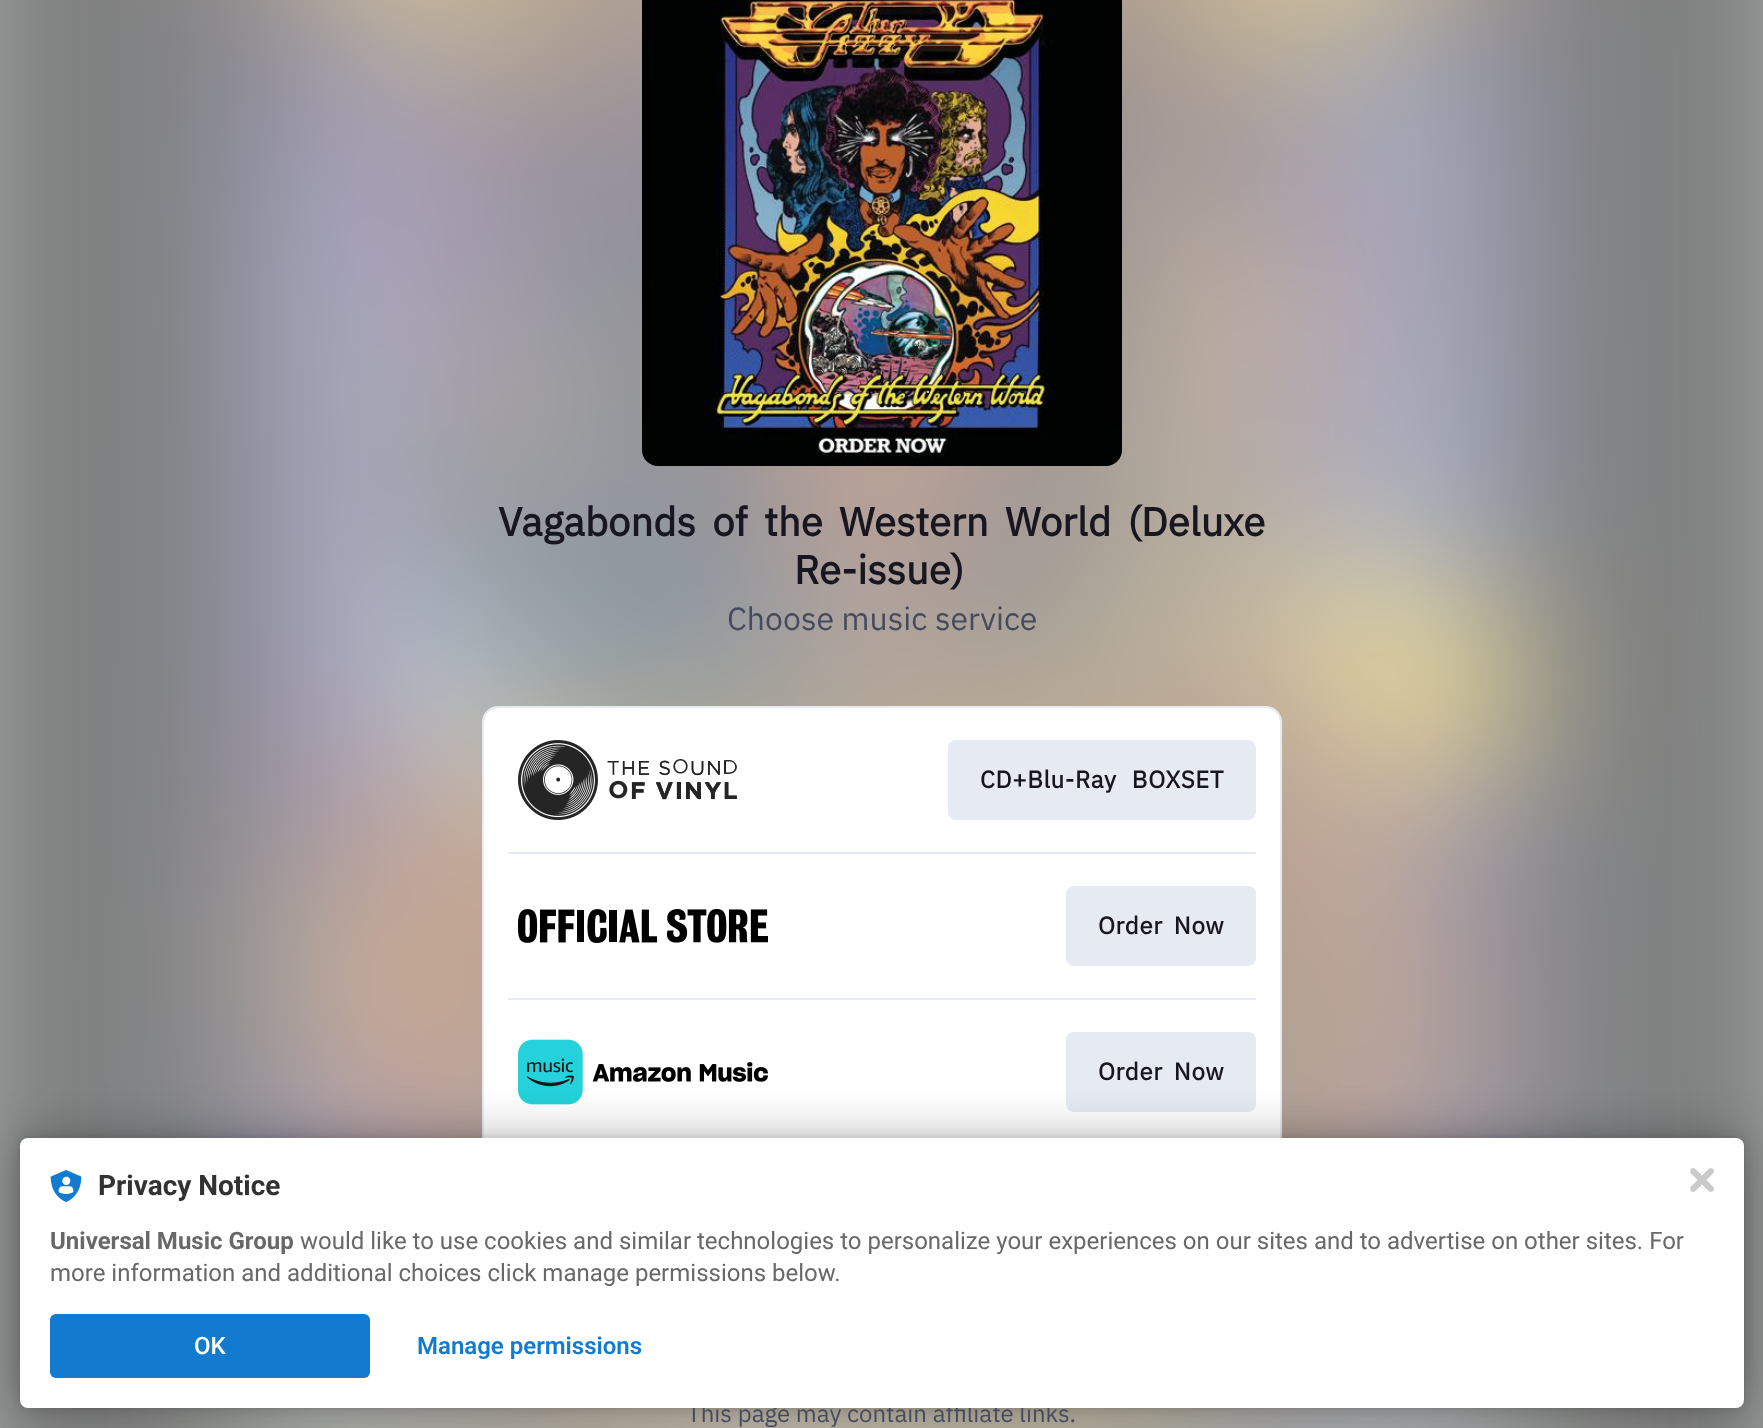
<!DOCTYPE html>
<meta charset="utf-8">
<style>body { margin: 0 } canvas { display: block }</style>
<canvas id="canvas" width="1763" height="1428"></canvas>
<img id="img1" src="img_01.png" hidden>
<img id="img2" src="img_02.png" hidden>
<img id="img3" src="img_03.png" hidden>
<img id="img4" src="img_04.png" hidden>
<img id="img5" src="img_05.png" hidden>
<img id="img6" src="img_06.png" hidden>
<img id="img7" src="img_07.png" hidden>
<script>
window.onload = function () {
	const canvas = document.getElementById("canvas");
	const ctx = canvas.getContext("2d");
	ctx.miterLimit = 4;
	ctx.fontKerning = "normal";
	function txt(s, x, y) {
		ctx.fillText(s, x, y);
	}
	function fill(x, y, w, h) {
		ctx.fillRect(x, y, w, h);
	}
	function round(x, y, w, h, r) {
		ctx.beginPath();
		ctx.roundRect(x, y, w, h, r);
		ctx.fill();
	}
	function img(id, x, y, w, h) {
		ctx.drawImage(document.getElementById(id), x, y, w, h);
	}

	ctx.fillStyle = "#FFFFFF";
	fill(0, 0, 1763, 1428);
	img("img1", 0, 0, 1763, 1428);
	img("img2", 642, 0, 480, 466);
	ctx.beginPath();
	ctx.roundRect(483, 707, 798, 584, 15);
	ctx.strokeStyle = "#E6EAF2";
	ctx.lineWidth = 2;
	ctx.stroke();
	round(484, 708, 796, 582, 14);
	img("img3", 518, 740, 219, 80);
	ctx.fillStyle = "#E6EAF2";
	round(948, 740, 308, 80, 8);
	fill(508, 852, 748, 2);
	img("img4", 518, 909, 250, 34);
	round(1066, 886, 190, 80, 8);
	fill(508, 998, 748, 2);
	img("img5", 518, 1039, 250, 66);
	round(1066, 1032, 190, 80, 8);
	ctx.fillStyle = "rgba(0, 0, 0, 0.12)";
	ctx.filter = "blur(4px)";
	ctx.beginPath();
	ctx.roundRect(20, 1138, 1724, 270, 8);
	ctx.fill();
	ctx.filter = "none";
	ctx.fillStyle = "rgba(0, 0, 0, 0.3)";
	ctx.filter = "blur(24px)";
	ctx.beginPath();
	ctx.roundRect(20, 1138, 1724, 270, 8);
	ctx.fill();
	ctx.filter = "none";
	ctx.wordSpacing = "7px";
	ctx.font = "bold 40px IBM Plex Sans";
	ctx.fillStyle = "#181721";
	txt("Vagabonds of the Western World (Deluxe", 498, 536);
	ctx.wordSpacing = "0px";
	txt("Re-issue)", 794, 584);
	ctx.font = "32px IBM Plex Sans";
	ctx.fillStyle = "#454B5F";
	txt("Choose music service", 727, 630);
	ctx.letterSpacing = "0.6px";
	ctx.wordSpacing = "9px";
	ctx.font = "bold 24px IBM Plex Sans";
	ctx.fillStyle = "#181721";
	txt("CD+Blu-Ray BOXSET", 980, 788);
	ctx.wordSpacing = "5px";
	txt("Order Now", 1098, 934);
	txt("Order Now", 1098, 1080);
	ctx.letterSpacing = "0px";
	ctx.wordSpacing = "0px";
	ctx.font = "24px IBM Plex Sans";
	ctx.fillStyle = "#454B5F";
	txt("This page may contain affiliate links.", 687, 1422);
	ctx.fillStyle = "#FFFFFF";
	round(20, 1138, 1724, 270, 8);
	img("img6", 50, 1170, 32, 32);
	ctx.font = "bold 28px Roboto";
	ctx.fillStyle = "#323232";
	txt("Privacy Notice", 98, 1195);
	ctx.font = "bold 24px Roboto";
	ctx.fillStyle = "#686868";
	txt("Universal Music Group", 50, 1249);
	ctx.font = "24px Roboto";
	txt("would like to use cookies and similar technologies to personalize your experiences on our sites and to advertise on other sites. For", 300, 1249);
	txt("more information and additional choices click manage permissions below.", 50, 1281);
	ctx.fillStyle = "#137BCF";
	round(50, 1314, 320, 64, 6);
	ctx.font = "500 24px Roboto";
	ctx.fillStyle = "#FFFFFF";
	txt("OK", 194, 1354);
	ctx.font = "600 24px Roboto";
	ctx.fillStyle = "#137BCF";
	txt("Manage permissions", 417, 1354);
	img("img7", 1690, 1168, 24, 24);
};
</script>
